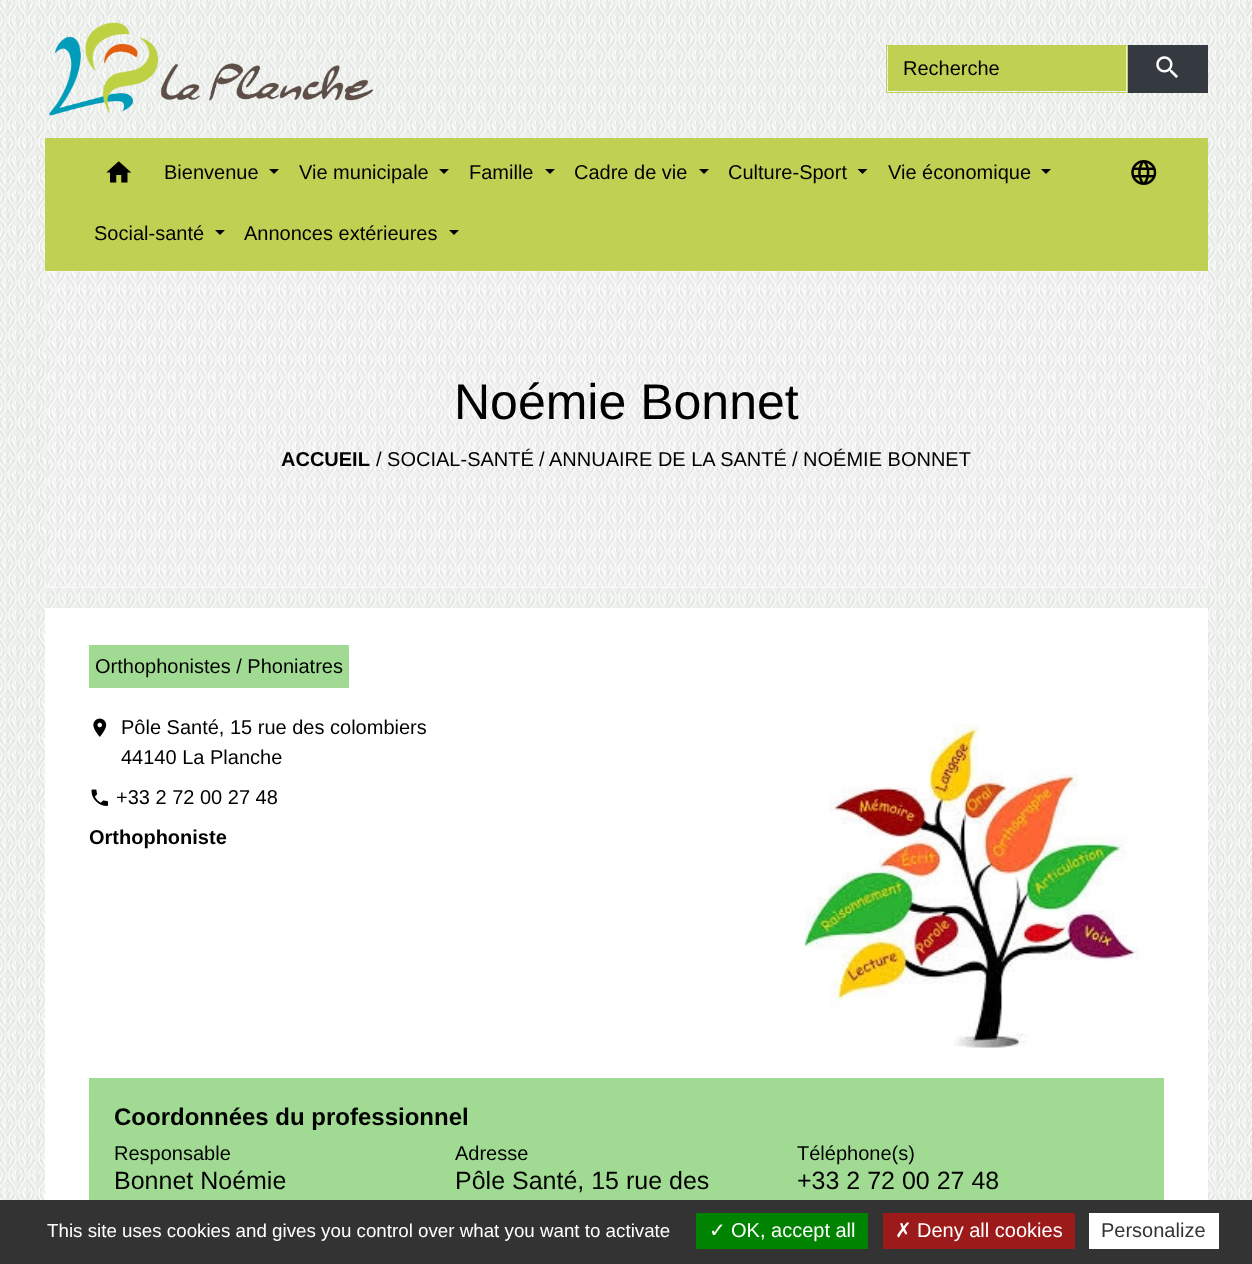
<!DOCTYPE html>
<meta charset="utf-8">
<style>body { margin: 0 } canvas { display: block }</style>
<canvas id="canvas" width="1252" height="1264"></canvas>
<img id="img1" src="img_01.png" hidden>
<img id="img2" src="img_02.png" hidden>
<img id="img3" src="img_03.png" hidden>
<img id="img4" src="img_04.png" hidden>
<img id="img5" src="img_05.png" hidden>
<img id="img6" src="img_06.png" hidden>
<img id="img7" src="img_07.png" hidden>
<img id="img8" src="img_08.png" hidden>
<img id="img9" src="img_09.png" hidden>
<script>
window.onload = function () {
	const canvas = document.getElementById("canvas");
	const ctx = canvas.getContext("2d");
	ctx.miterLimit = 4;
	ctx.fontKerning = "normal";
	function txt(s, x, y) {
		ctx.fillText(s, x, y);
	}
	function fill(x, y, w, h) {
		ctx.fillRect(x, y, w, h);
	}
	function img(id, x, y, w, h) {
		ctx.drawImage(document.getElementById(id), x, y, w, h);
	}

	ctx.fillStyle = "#FBFEFB";
	fill(0, 0, 1252, 1264);
	img("img1", 0, 0, 1252, 1200);
	img("img2", 49, 22, 325, 94);
	ctx.fillStyle = "#C0D053";
	fill(888, 46, 238, 45);
	ctx.strokeStyle = "#C0D053";
	ctx.strokeRect(886.5, 45.5, 241, 47);
	ctx.fillStyle = "#343A40";
	fill(1128, 45, 80, 48);
	img("img3", 1156, 56, 22, 22);
	ctx.fillStyle = "#C0D053";
	fill(45, 138, 1163, 133);
	img("img4", 106, 161, 26, 22);
	ctx.fillStyle = "#000000";
	ctx.beginPath();
	ctx.moveTo(269, 169);
	ctx.lineTo(279, 169);
	ctx.lineTo(274, 174);
	ctx.closePath();
	ctx.fill();
	ctx.beginPath();
	ctx.moveTo(439, 169);
	ctx.lineTo(449, 169);
	ctx.lineTo(444, 174);
	ctx.closePath();
	ctx.fill();
	ctx.beginPath();
	ctx.moveTo(545, 169);
	ctx.lineTo(555, 169);
	ctx.lineTo(550, 174);
	ctx.closePath();
	ctx.fill();
	ctx.beginPath();
	ctx.moveTo(699, 169);
	ctx.lineTo(709, 169);
	ctx.lineTo(704, 174);
	ctx.closePath();
	ctx.fill();
	ctx.beginPath();
	ctx.moveTo(857.5, 169);
	ctx.lineTo(867.5, 169);
	ctx.lineTo(862.5, 174);
	ctx.closePath();
	ctx.fill();
	ctx.beginPath();
	ctx.moveTo(1041, 169);
	ctx.lineTo(1051, 169);
	ctx.lineTo(1046, 174);
	ctx.closePath();
	ctx.fill();
	ctx.beginPath();
	ctx.moveTo(215, 230);
	ctx.lineTo(225, 230);
	ctx.lineTo(220, 235);
	ctx.closePath();
	ctx.fill();
	ctx.beginPath();
	ctx.moveTo(449, 230);
	ctx.lineTo(459, 230);
	ctx.lineTo(454, 235);
	ctx.closePath();
	ctx.fill();
	img("img5", 1131, 160, 26, 25);
	ctx.fillStyle = "rgba(255, 255, 255, 0.95)";
	fill(45, 271, 1163, 317);
	img("img6", 45, 271, 1163, 317);
	fill(45, 608, 1163, 592);
	ctx.fillStyle = "#A1DB93";
	fill(89, 645, 260, 43);
	img("img7", 93, 718, 14, 19);
	img("img8", 91, 789, 17, 17);
	img("img9", 805, 723, 334, 325);
	fill(89, 1078, 1075, 122);
	ctx.fillStyle = "#333333";
	fill(0, 1200, 1252, 64);
	ctx.fillStyle = "#008300";
	fill(696, 1213, 172, 36);
	ctx.fillStyle = "#9C1A1A";
	fill(883, 1213, 192, 36);
	ctx.fillStyle = "#FFFFFF";
	fill(1089, 1213, 130, 36);
	ctx.font = "20px Liberation Sans";
	ctx.fillStyle = "#000000";
	txt("Recherche", 903, 75);
	txt("Bienvenue", 164, 179);
	txt("Vie municipale", 299, 179);
	txt("Famille", 469, 179);
	txt("Cadre de vie", 574, 179);
	txt("Culture-Sport", 728, 179);
	txt("Vie économique", 888, 179);
	txt("Social-santé", 94, 240);
	txt("Annonces extérieures", 244, 240);
	ctx.font = "50px Liberation Sans";
	txt("Noémie Bonnet", 454, 419);
	ctx.font = "bold 20px Liberation Sans";
	txt("ACCUEIL", 281, 466);
	ctx.font = "20px Liberation Sans";
	txt("/ SOCIAL-SANTÉ", 376, 466);
	txt("/", 539, 466);
	txt("ANNUAIRE DE LA SANTÉ", 549, 466);
	txt("/ NOÉMIE BONNET", 792, 466);
	txt("Orthophonistes / Phoniatres", 95, 673);
	txt("Pôle Santé, 15 rue des colombiers", 121, 734);
	txt("44140 La Planche", 121, 764);
	txt("+33 2 72 00 27 48", 116, 804);
	ctx.font = "bold 20px Liberation Sans";
	txt("Orthophoniste", 89, 844);
	ctx.font = "bold 24px Liberation Sans";
	txt("Coordonnées du professionnel", 114, 1125);
	ctx.font = "20px Liberation Sans";
	txt("Responsable", 114, 1160);
	ctx.font = "25px Liberation Sans";
	txt("Bonnet Noémie", 114, 1189);
	ctx.font = "20px Liberation Sans";
	txt("Adresse", 455, 1160);
	ctx.font = "25px Liberation Sans";
	txt("Pôle Santé, 15 rue des", 455, 1189);
	ctx.font = "20px Liberation Sans";
	txt("Téléphone(s)", 797, 1160);
	ctx.font = "25px Liberation Sans";
	txt("+33 2 72 00 27 48", 797, 1189);
	ctx.font = "18.75px Liberation Sans";
	ctx.fillStyle = "#FFFFFF";
	txt("This site uses cookies and gives you control over what you want to activate", 47, 1237);
	ctx.font = "20px DejaVu Sans";
	txt("✓", 709, 1237);
	ctx.font = "20px Liberation Sans";
	txt("OK, accept all", 731, 1237);
	ctx.font = "20px DejaVu Sans";
	txt("✗", 895, 1237);
	ctx.font = "20px Liberation Sans";
	txt("Deny all cookies", 917, 1237);
	ctx.fillStyle = "#333333";
	txt("Personalize", 1101, 1237);
};
</script>
